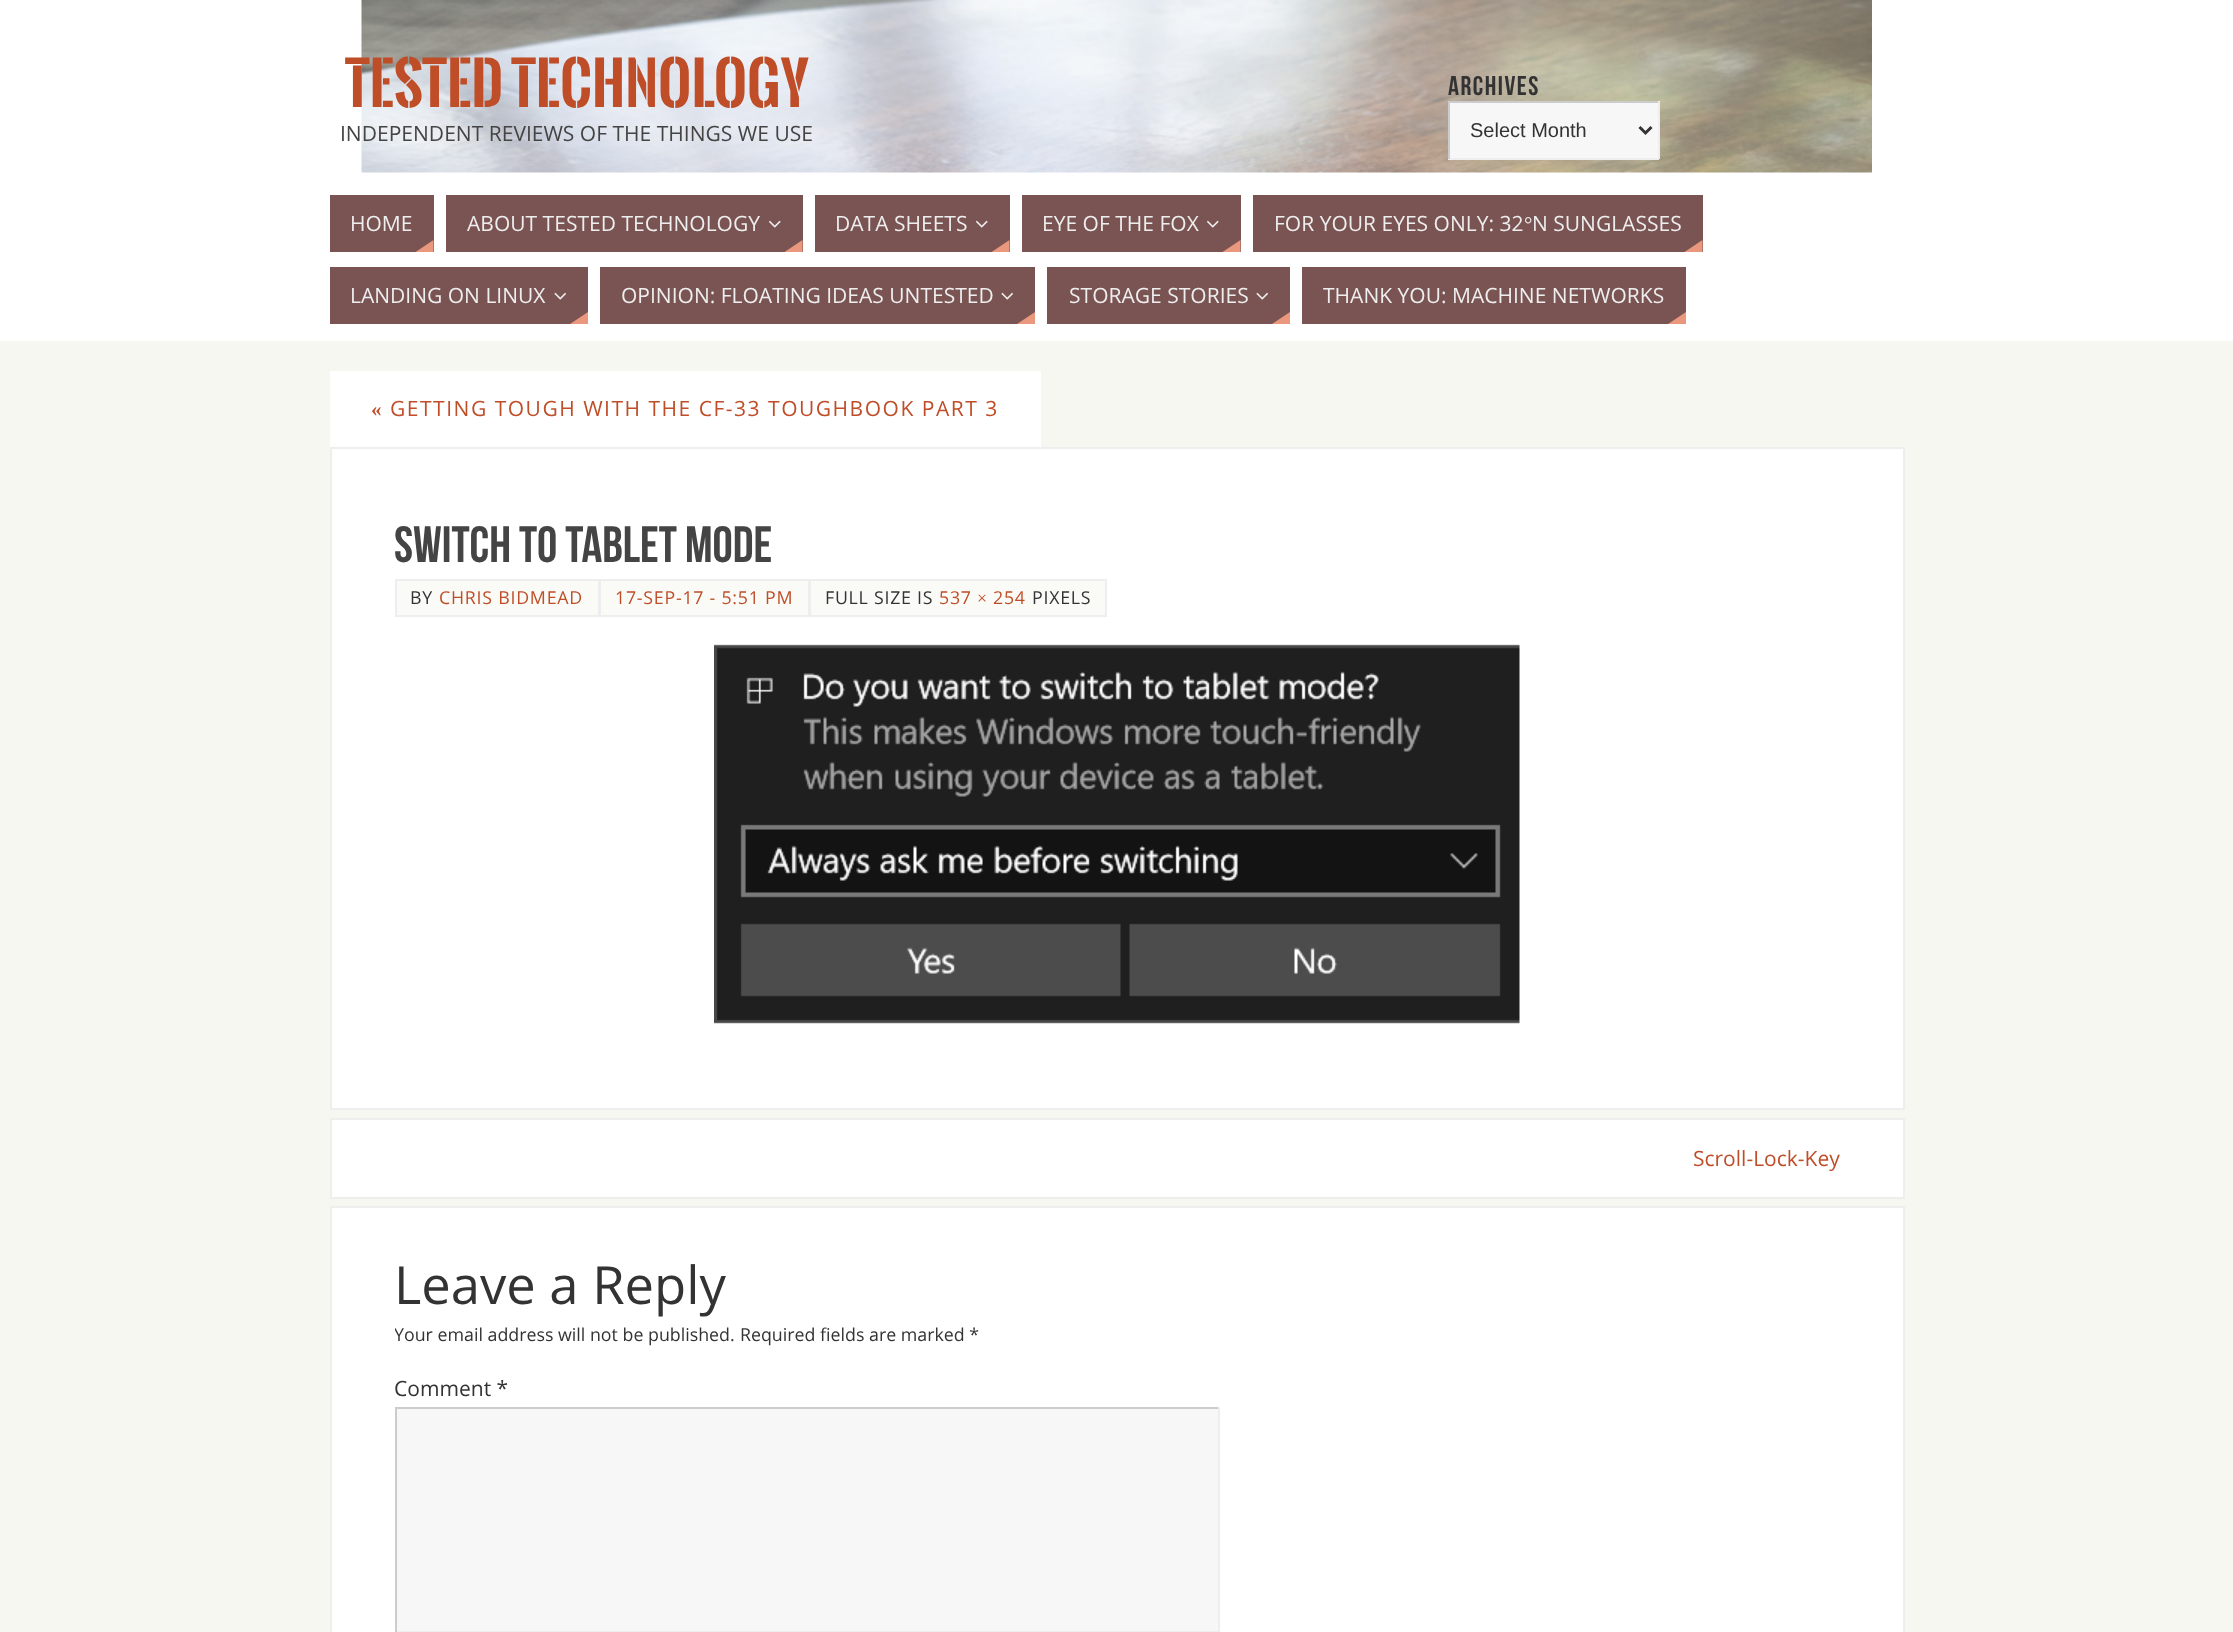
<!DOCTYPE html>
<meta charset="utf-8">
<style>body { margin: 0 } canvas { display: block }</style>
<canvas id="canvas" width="2233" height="1632"></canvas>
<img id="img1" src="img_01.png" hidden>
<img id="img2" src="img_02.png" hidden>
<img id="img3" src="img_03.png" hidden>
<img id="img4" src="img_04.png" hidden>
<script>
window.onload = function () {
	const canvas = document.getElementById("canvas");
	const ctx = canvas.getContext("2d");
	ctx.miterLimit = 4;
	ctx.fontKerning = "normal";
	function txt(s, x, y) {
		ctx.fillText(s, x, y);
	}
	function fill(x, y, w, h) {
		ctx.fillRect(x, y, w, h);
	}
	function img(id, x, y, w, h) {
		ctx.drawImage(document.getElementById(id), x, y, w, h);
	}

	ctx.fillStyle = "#F7F7F2";
	fill(0, 0, 2233, 1632);
	ctx.fillStyle = "#FFFFFF";
	fill(0, 0, 2233, 341);
	img("img1", 361, 0, 1511, 173);
	ctx.fillStyle = "#F7F7F7";
	fill(1450, 103, 208, 55);
	ctx.fillStyle = "#CCCCCC";
	fill(1448, 101, 211, 2);
	ctx.fillStyle = "#EEEEEE";
	fill(1658, 101, 2, 58);
	fill(1448, 158, 211, 2);
	ctx.fillStyle = "#CCCCCC";
	fill(1448, 101, 2, 58);
	ctx.beginPath();
	ctx.moveTo(1639.5, 127);
	ctx.lineTo(1645.5, 133);
	ctx.lineTo(1651.5, 127);
	ctx.strokeStyle = "#333333";
	ctx.lineWidth = 3;
	ctx.stroke();
	ctx.fillStyle = "#7A5353";
	fill(330, 195, 104, 57);
	ctx.fillStyle = "#E9987E";
	ctx.beginPath();
	ctx.moveTo(433.5, 252);
	ctx.lineTo(415.5, 252);
	ctx.lineTo(433.5, 240);
	ctx.closePath();
	ctx.fill();
	ctx.fillStyle = "#7A5353";
	fill(446, 195, 357, 57);
	img("img2", 769, 220, 12, 8);
	ctx.fillStyle = "#E9987E";
	ctx.beginPath();
	ctx.moveTo(802.5, 252);
	ctx.lineTo(784.5, 252);
	ctx.lineTo(802.5, 240);
	ctx.closePath();
	ctx.fill();
	ctx.fillStyle = "#7A5353";
	fill(815, 195, 195, 57);
	img("img2", 976, 220, 12, 8);
	ctx.fillStyle = "#E9987E";
	ctx.beginPath();
	ctx.moveTo(1009.5, 252);
	ctx.lineTo(991.5, 252);
	ctx.lineTo(1009.5, 240);
	ctx.closePath();
	ctx.fill();
	ctx.fillStyle = "#7A5353";
	fill(1022, 195, 219, 57);
	img("img2", 1207, 220, 12, 8);
	ctx.fillStyle = "#E9987E";
	ctx.beginPath();
	ctx.moveTo(1240.5, 252);
	ctx.lineTo(1222.5, 252);
	ctx.lineTo(1240.5, 240);
	ctx.closePath();
	ctx.fill();
	ctx.fillStyle = "#7A5353";
	fill(1253, 195, 450, 57);
	ctx.fillStyle = "#E9987E";
	ctx.beginPath();
	ctx.moveTo(1702.5, 252);
	ctx.lineTo(1684.5, 252);
	ctx.lineTo(1702.5, 240);
	ctx.closePath();
	ctx.fill();
	ctx.fillStyle = "#7A5353";
	fill(330, 267, 258, 57);
	img("img3", 554, 292, 12, 8);
	ctx.fillStyle = "#E9987E";
	ctx.beginPath();
	ctx.moveTo(588, 324);
	ctx.lineTo(570, 324);
	ctx.lineTo(588, 312);
	ctx.closePath();
	ctx.fill();
	ctx.fillStyle = "#7A5353";
	fill(600, 267, 435, 57);
	img("img3", 1001, 292, 12, 8);
	ctx.fillStyle = "#E9987E";
	ctx.beginPath();
	ctx.moveTo(1035, 324);
	ctx.lineTo(1017, 324);
	ctx.lineTo(1035, 312);
	ctx.closePath();
	ctx.fill();
	ctx.fillStyle = "#7A5353";
	fill(1047, 267, 243, 57);
	img("img3", 1256, 292, 12, 8);
	ctx.fillStyle = "#E9987E";
	ctx.beginPath();
	ctx.moveTo(1290, 324);
	ctx.lineTo(1272, 324);
	ctx.lineTo(1290, 312);
	ctx.closePath();
	ctx.fill();
	ctx.fillStyle = "#7A5353";
	fill(1302, 267, 384, 57);
	ctx.fillStyle = "#E9987E";
	ctx.beginPath();
	ctx.moveTo(1686, 324);
	ctx.lineTo(1668, 324);
	ctx.lineTo(1686, 312);
	ctx.closePath();
	ctx.fill();
	ctx.fillStyle = "#FFFFFF";
	fill(330, 371, 711, 76);
	ctx.beginPath();
	ctx.rect(331, 448, 1573, 661);
	ctx.fill();
	ctx.strokeStyle = "#EEEEEE";
	ctx.lineWidth = 2;
	ctx.stroke();
	ctx.fillStyle = "#FAFAF7";
	ctx.beginPath();
	ctx.rect(396, 580, 203, 36);
	ctx.fill();
	ctx.stroke();
	ctx.beginPath();
	ctx.rect(600, 580, 209, 36);
	ctx.fill();
	ctx.stroke();
	ctx.beginPath();
	ctx.rect(810, 580, 296, 36);
	ctx.fill();
	ctx.stroke();
	img("img4", 714, 644, 806, 380);
	ctx.fillStyle = "#FFFFFF";
	ctx.beginPath();
	ctx.rect(331, 1119, 1573, 79);
	ctx.fill();
	ctx.stroke();
	ctx.beginPath();
	ctx.rect(331, 1207, 1573, 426);
	ctx.fill();
	ctx.stroke();
	ctx.fillStyle = "#F7F7F7";
	fill(397, 1409, 821, 222);
	ctx.fillStyle = "#CCCCCC";
	fill(395, 1407, 825, 2);
	ctx.fillStyle = "#EEEEEE";
	fill(1218, 1407, 2, 225);
	fill(395, 1631, 825, 1);
	ctx.fillStyle = "#CCCCCC";
	fill(395, 1407, 2, 225);
	ctx.font = "bold 57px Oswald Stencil";
	ctx.fillStyle = "#BF4D28";
	txt("TESTED TECHNOLOGY", 345, 107);
	ctx.font = "21px Open Sans";
	ctx.fillStyle = "#444444";
	txt("INDEPENDENT REVIEWS OF THE THINGS WE USE", 340, 141);
	ctx.letterSpacing = "1.5px";
	ctx.font = "27px Bebas Neue";
	ctx.fillStyle = "#333333";
	txt("ARCHIVES", 1448, 95);
	ctx.letterSpacing = "0px";
	ctx.font = "20px Liberation Sans";
	txt("Select Month", 1470, 137);
	ctx.font = "21px Open Sans";
	ctx.fillStyle = "#EEEEEE";
	txt("HOME", 350, 231);
	txt("ABOUT TESTED TECHNOLOGY", 467, 231);
	txt("DATA SHEETS", 835, 231);
	txt("EYE OF THE FOX", 1042, 231);
	txt("FOR YOUR EYES ONLY: 32", 1274, 231);
	ctx.font = "21px Liberation Serif";
	txt("°", 1524, 231);
	ctx.font = "21px Open Sans";
	txt("N SUNGLASSES", 1532, 231);
	txt("LANDING ON LINUX", 350, 303);
	txt("OPINION: FLOATING IDEAS UNTESTED", 621, 303);
	txt("STORAGE STORIES", 1069, 303);
	txt("THANK YOU: MACHINE NETWORKS", 1323, 303);
	ctx.letterSpacing = "1.5px";
	ctx.font = "bold 21px Liberation Serif";
	ctx.fillStyle = "#BF4D28";
	txt("«", 371, 416);
	ctx.font = "21px Open Sans";
	txt("GETTING TOUGH WITH THE CF-33 TOUGHBOOK PART 3", 390, 416);
	ctx.letterSpacing = "0px";
	ctx.font = "51px Bebas Neue";
	ctx.fillStyle = "#444444";
	txt("switch to tablet mode", 394, 562);
	ctx.letterSpacing = "0.75px";
	ctx.font = "17.8px Open Sans";
	ctx.fillStyle = "#333333";
	txt("BY", 410, 604);
	ctx.fillStyle = "#BF4D28";
	txt("CHRIS BIDMEAD", 439, 604);
	txt("17-SEP-17 - 5:51 PM", 615, 604);
	ctx.fillStyle = "#333333";
	txt("FULL SIZE IS", 825, 604);
	ctx.fillStyle = "#BF4D28";
	txt("537", 939, 604);
	ctx.font = "17.8px Liberation Serif";
	txt("×", 977, 604);
	ctx.font = "17.8px Open Sans";
	txt("254", 993, 604);
	ctx.fillStyle = "#333333";
	txt("PIXELS", 1032, 604);
	ctx.letterSpacing = "0px";
	ctx.font = "21px Open Sans";
	ctx.fillStyle = "#BF4D28";
	txt("Scroll-Lock-Key", 1693, 1166);
	ctx.font = "52.5px Open Sans";
	ctx.fillStyle = "#333333";
	txt("Leave a Reply", 394, 1304);
	ctx.save();
	ctx.beginPath();
	ctx.rect(395, 1250, 1446, 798);
	ctx.clip();
	ctx.font = "17.8px Open Sans";
	txt("Your email address will not be published.", 394, 1341);
	ctx.restore();
	ctx.font = "17.8px Open Sans";
	txt("Required fields are marked *", 740, 1341);
	ctx.font = "21px Open Sans";
	txt("Comment *", 394, 1396);
};
</script>
